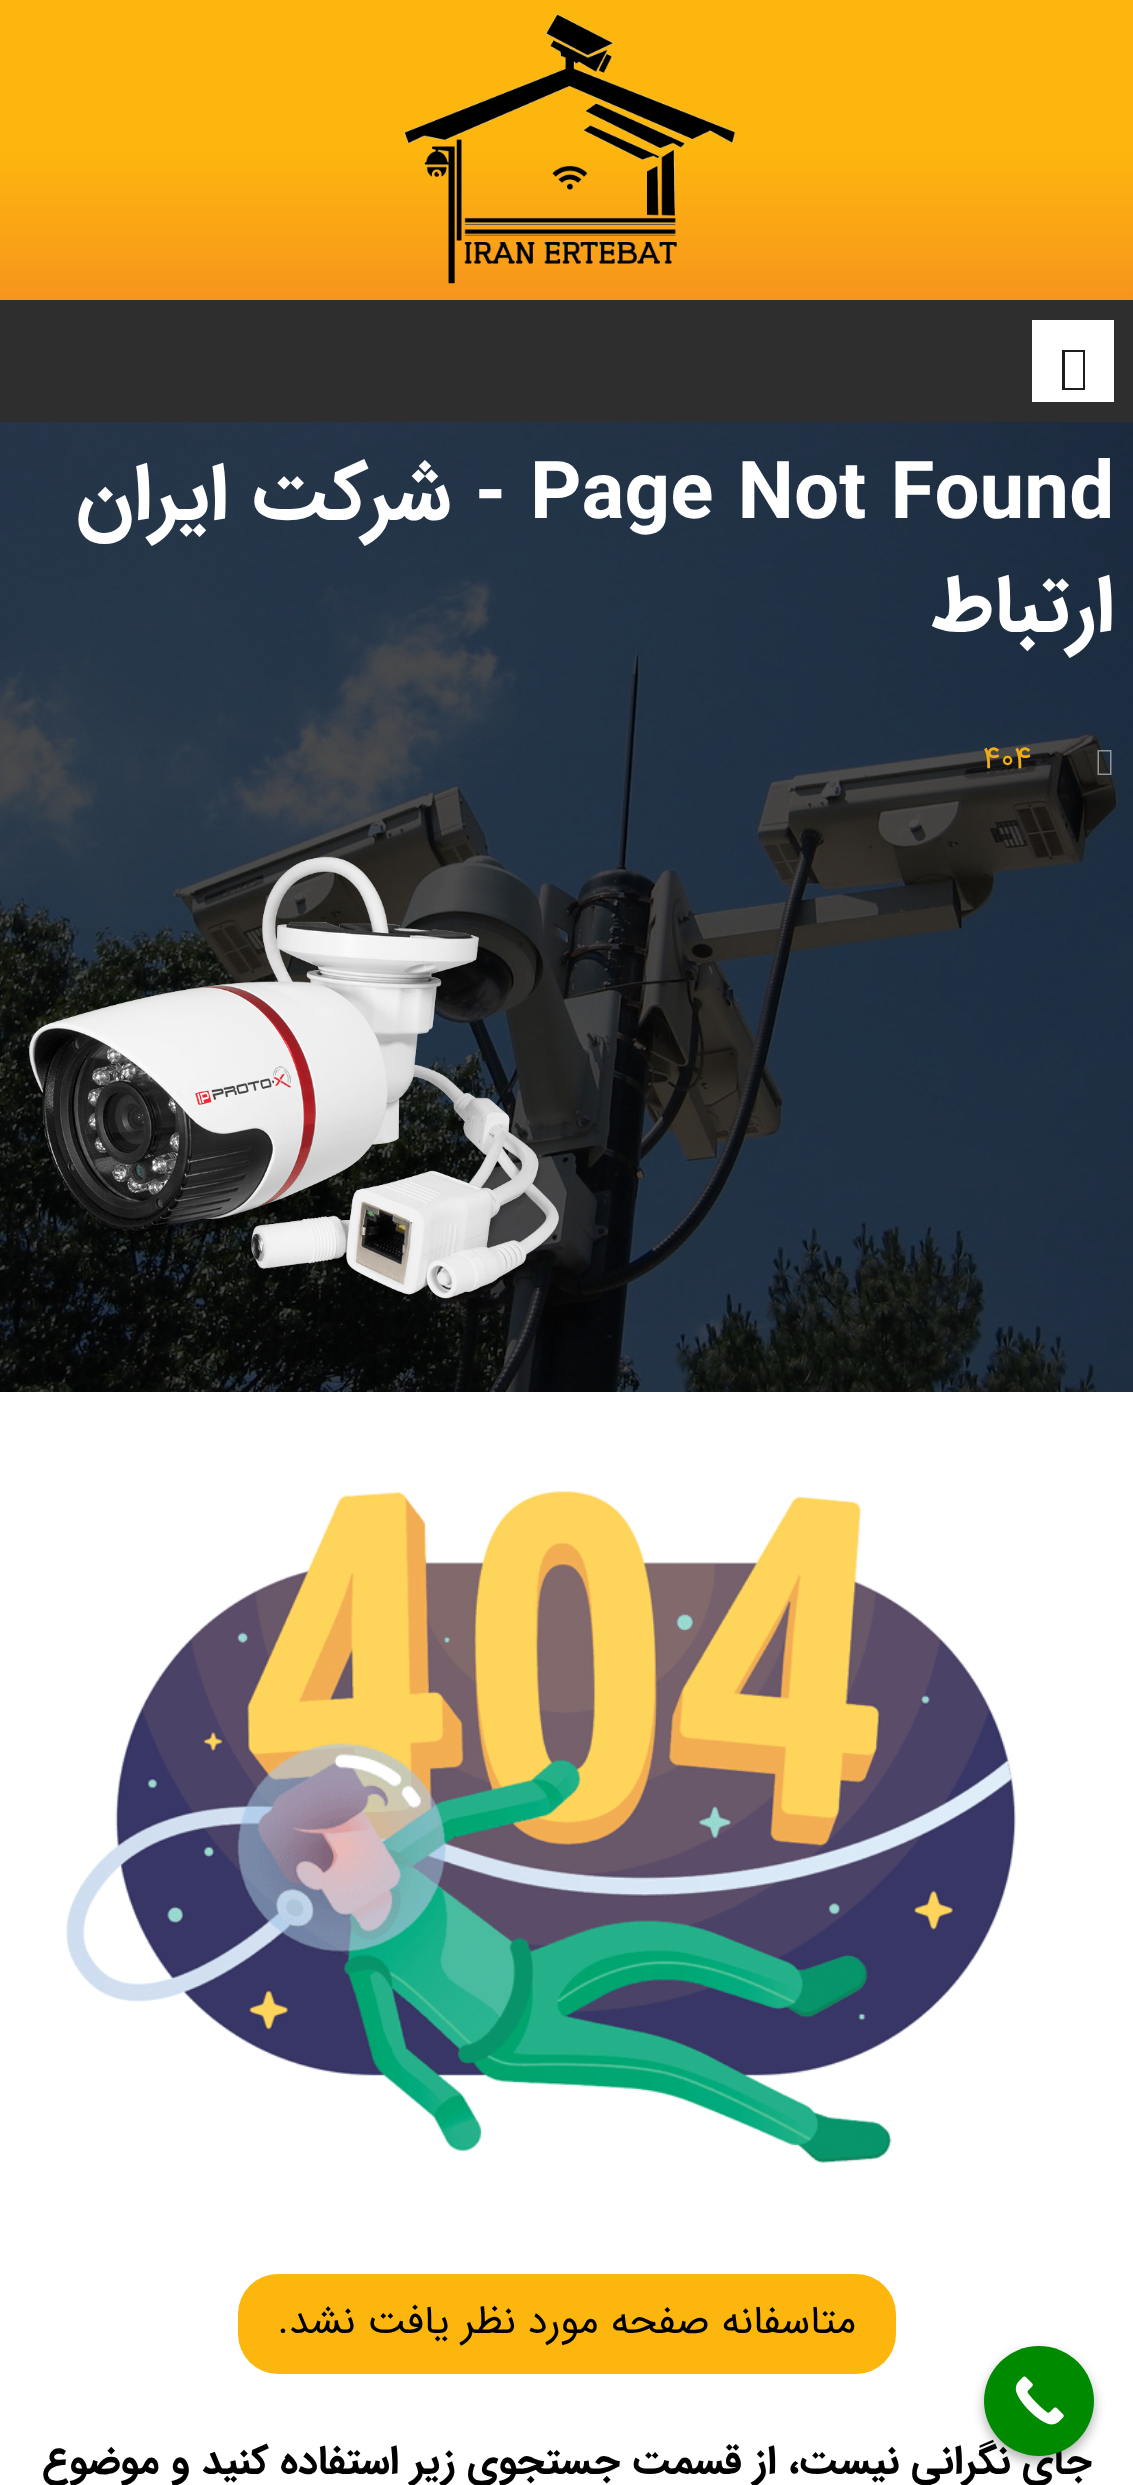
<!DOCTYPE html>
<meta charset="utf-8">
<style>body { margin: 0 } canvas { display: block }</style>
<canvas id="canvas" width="1133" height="2485"></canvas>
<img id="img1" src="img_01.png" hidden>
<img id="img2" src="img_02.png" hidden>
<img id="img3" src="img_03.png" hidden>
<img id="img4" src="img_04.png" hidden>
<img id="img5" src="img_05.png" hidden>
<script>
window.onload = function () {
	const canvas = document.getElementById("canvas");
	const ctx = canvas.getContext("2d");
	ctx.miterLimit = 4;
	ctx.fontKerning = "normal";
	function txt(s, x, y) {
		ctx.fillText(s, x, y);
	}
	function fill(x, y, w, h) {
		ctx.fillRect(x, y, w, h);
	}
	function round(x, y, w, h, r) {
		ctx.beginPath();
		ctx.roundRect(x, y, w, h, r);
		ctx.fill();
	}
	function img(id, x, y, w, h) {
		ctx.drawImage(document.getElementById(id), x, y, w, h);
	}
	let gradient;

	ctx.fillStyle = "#FFFFFF";
	fill(0, 0, 1133, 2485);
	ctx.fillStyle = "#2E2E2E";
	fill(0, 300, 1133, 122);
	gradient = ctx.createLinearGradient(567, 0, 567, 300);
	gradient.addColorStop(0.5, "#FDB60D");
	gradient.addColorStop(1, "#F7951D");
	ctx.fillStyle = gradient;
	fill(0, 0, 1133, 300);
	img("img1", 404, 14, 332, 270);
	ctx.fillStyle = "#FFFFFF";
	fill(1032, 320, 82, 82);
	ctx.fillStyle = "#1C1D1D";
	ctx.beginPath();
	ctx.moveTo(1062, 390);
	ctx.lineTo(1062, 350);
	ctx.lineTo(1085, 350);
	ctx.lineTo(1085, 390);
	ctx.closePath();
	ctx.moveTo(1065, 388);
	ctx.lineTo(1083, 388);
	ctx.lineTo(1083, 352);
	ctx.lineTo(1065, 352);
	ctx.closePath();
	ctx.fill();
	img("img2", 0, 422, 1133, 970);
	ctx.fillStyle = "rgba(255, 255, 255, 0.5)";
	ctx.beginPath();
	ctx.moveTo(1097.5, 775);
	ctx.lineTo(1097.5, 750);
	ctx.lineTo(1111.5, 750);
	ctx.lineTo(1111.5, 775);
	ctx.closePath();
	ctx.moveTo(1099, 773.5);
	ctx.lineTo(1110, 773.5);
	ctx.lineTo(1110, 751.5);
	ctx.lineTo(1099, 751.5);
	ctx.closePath();
	ctx.fill();
	img("img3", 29, 856, 530, 443);
	img("img4", 66, 1491, 950, 672);
	ctx.fillStyle = "#FDB60D";
	round(238, 2274, 658, 100, 40);
	ctx.fillStyle = "rgba(0, 0, 0, 0.3)";
	ctx.filter = "blur(6px)";
	ctx.beginPath();
	ctx.roundRect(984, 2352, 110, 110, 55);
	ctx.fill();
	ctx.filter = "none";
	ctx.font = "bold 80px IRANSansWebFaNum";
	ctx.fillStyle = "#FFFFFF";
	txt("Page Not Found", 530, 518);
	ctx.direction = "rtl";
	txt("- شرکت ایران", 506, 518);
	txt("ارتباط", 1114, 630);
	ctx.direction = "ltr";
	ctx.font = "32px IRANSansWebFaNum";
	ctx.fillStyle = "#EEAD16";
	txt("404", 983, 768);
	ctx.direction = "rtl";
	ctx.font = "40px IRANSansWebFaNum";
	ctx.fillStyle = "#000000";
	txt("متاسفانه صفحه مورد نظر یافت نشد.", 856, 2333);
	ctx.font = "bold 40px IRANSansWebFaNum";
	txt("جای نگرانی نیست، از قسمت جستجوی زیر استفاده کنید و موضوع", 1092, 2473);
	ctx.fillStyle = "#008A00";
	ctx.beginPath();
	ctx.arc(1039, 2401, 55, 0, Math.PI * 2);
	ctx.fill();
	img("img5", 1015, 2376, 49, 49);
};
</script>
